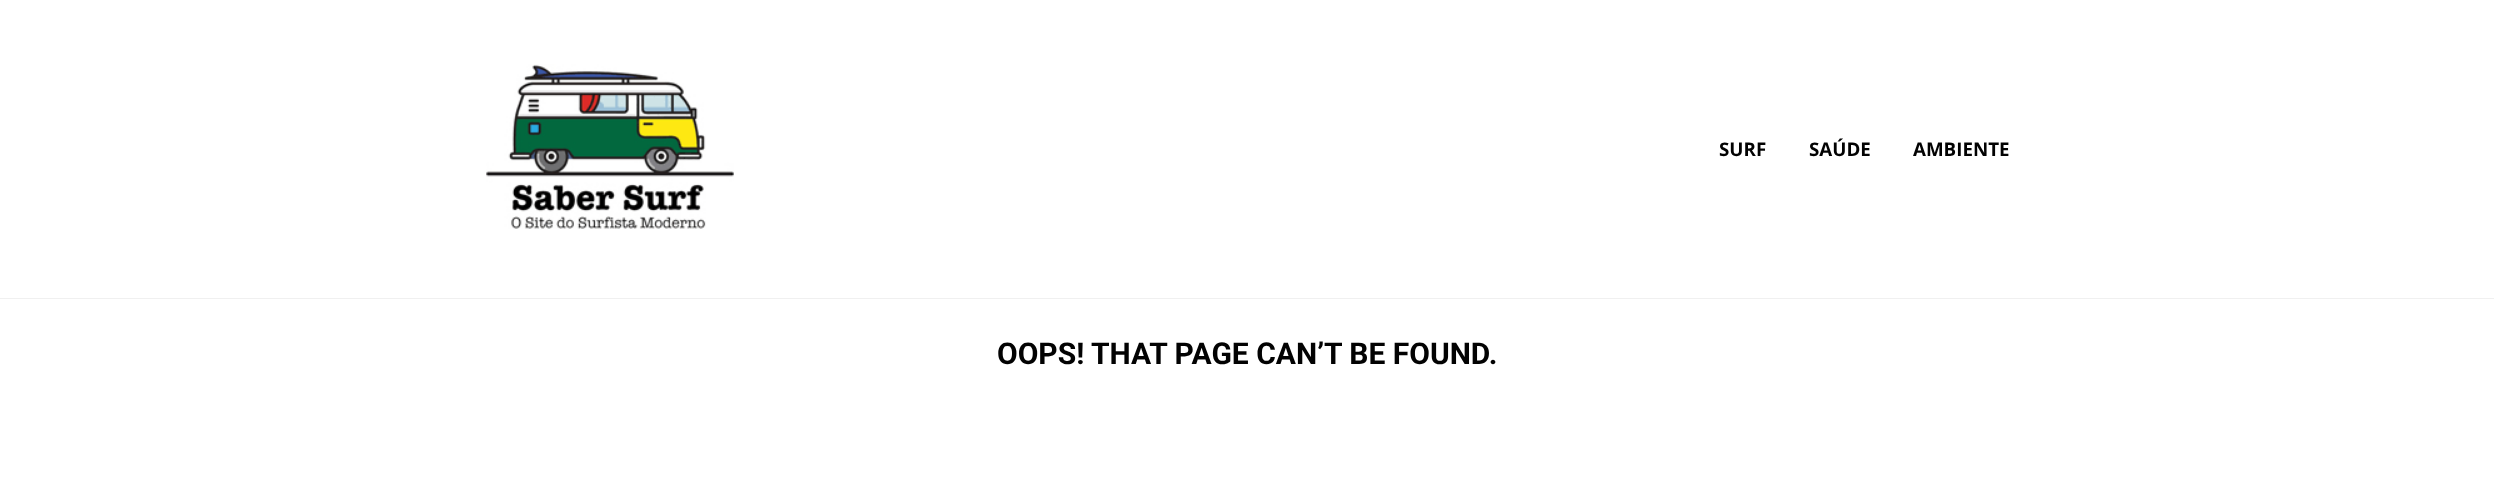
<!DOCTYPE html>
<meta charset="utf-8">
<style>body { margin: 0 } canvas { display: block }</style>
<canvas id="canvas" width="2494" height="483"></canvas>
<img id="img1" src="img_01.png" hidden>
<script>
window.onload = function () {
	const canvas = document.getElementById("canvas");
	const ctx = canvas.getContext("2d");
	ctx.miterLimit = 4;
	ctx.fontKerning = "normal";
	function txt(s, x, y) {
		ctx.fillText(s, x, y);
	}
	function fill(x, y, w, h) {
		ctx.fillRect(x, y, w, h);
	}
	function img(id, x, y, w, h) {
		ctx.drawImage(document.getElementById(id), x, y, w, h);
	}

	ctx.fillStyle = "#FFFFFF";
	fill(0, 0, 2494, 483);
	ctx.fillStyle = "#F0F0F0";
	fill(0, 298, 2494, 1);
	img("img1", 486, 64, 248, 165);
	ctx.font = "bold 18.75px Open Sans";
	ctx.fillStyle = "#020202";
	txt("SURF", 1719, 156);
	txt("SAÚDE", 1809, 156);
	txt("AMBIENTE", 1913, 156);
	ctx.font = "bold 30px Roboto";
	txt("OOPS! THAT PAGE CAN’T BE FOUND.", 997, 364);
};
</script>
